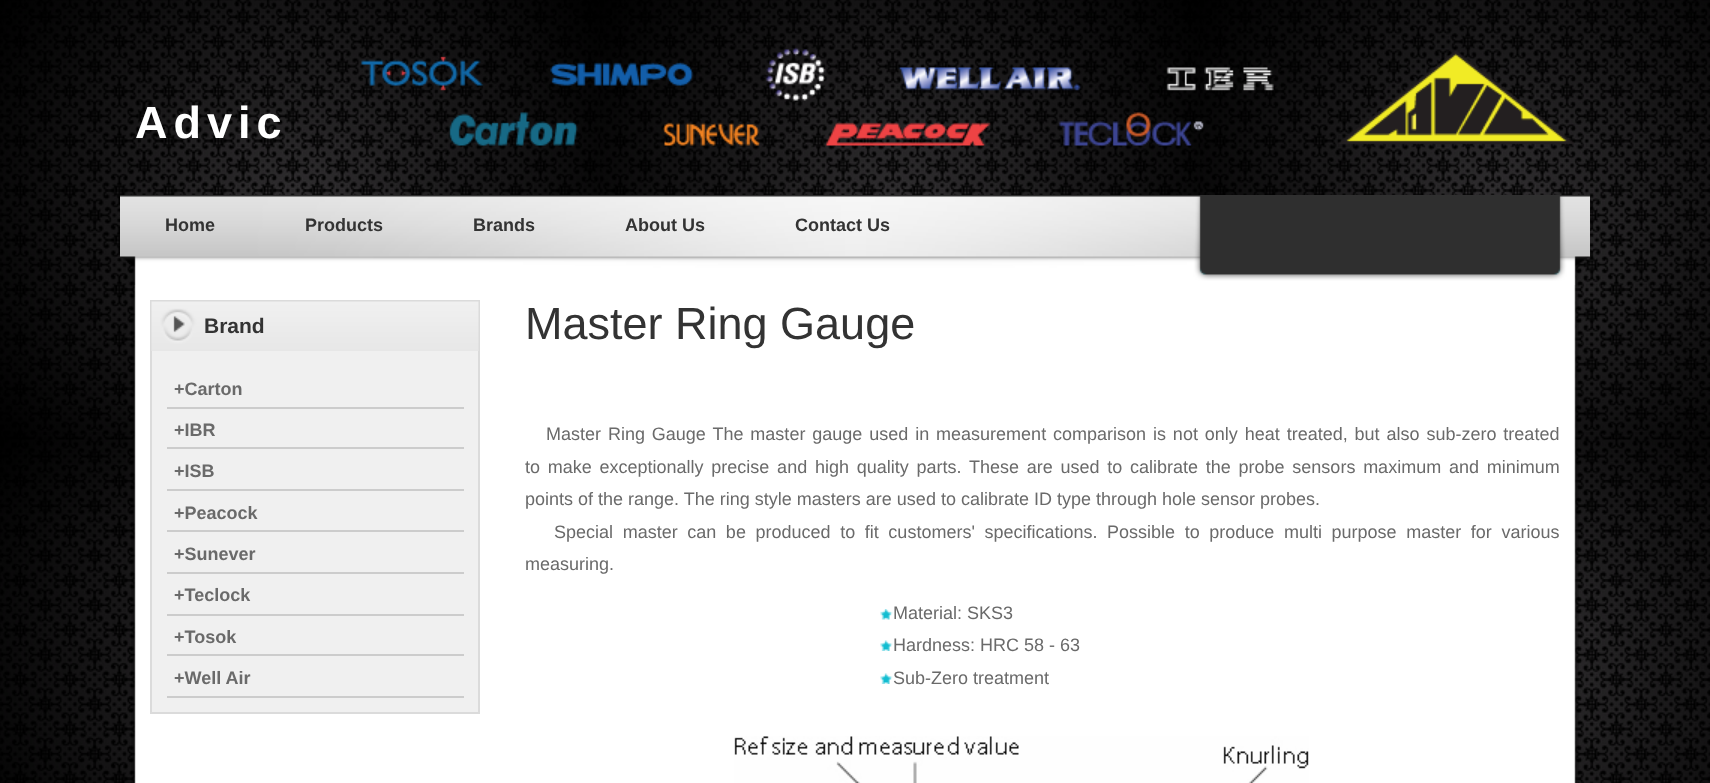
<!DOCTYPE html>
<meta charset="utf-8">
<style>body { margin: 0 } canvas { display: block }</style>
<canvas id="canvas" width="1710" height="783"></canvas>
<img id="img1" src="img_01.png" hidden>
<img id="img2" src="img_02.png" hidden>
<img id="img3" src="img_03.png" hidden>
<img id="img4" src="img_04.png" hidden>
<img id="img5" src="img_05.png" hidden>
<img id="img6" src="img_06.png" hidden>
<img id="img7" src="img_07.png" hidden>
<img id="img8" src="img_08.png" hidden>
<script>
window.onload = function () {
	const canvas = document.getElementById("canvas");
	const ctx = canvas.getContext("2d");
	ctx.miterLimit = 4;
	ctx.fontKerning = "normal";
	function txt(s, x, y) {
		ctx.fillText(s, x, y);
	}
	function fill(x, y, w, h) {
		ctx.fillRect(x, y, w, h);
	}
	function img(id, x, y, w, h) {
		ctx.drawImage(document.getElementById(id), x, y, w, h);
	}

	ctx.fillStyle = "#FFFFFF";
	fill(0, 0, 1710, 783);
	img("img1", 0, 0, 1710, 783);
	img("img2", 361, 47, 1213, 99);
	img("img3", 120, 195, 1470, 90);
	img("img4", 131, 285, 1448, 498);
	ctx.fillStyle = "#F0F0F0";
	fill(152, 351, 326, 361);
	ctx.strokeStyle = "#DBDBDB";
	ctx.lineWidth = 2;
	ctx.strokeRect(151, 301, 328, 412);
	img("img5", 151, 301, 328, 50);
	ctx.fillStyle = "#CCCCCC";
	fill(167, 407, 297, 2);
	fill(167, 447, 297, 2);
	fill(167, 489, 297, 2);
	fill(167, 530, 297, 2);
	fill(167, 572, 297, 2);
	fill(167, 614, 297, 2);
	fill(167, 654, 297, 2);
	fill(167, 696, 297, 2);
	img("img6", 880, 609, 13, 11);
	img("img7", 880, 640, 13, 11);
	img("img7", 880, 673, 13, 11);
	img("img8", 734, 736, 575, 47);
	ctx.letterSpacing = "6px";
	ctx.font = "bold 45px Liberation Sans";
	ctx.fillStyle = "#FFFFFF";
	txt("Advic", 135, 138);
	ctx.letterSpacing = "0px";
	ctx.font = "bold 18px Liberation Sans";
	ctx.fillStyle = "#333333";
	txt("Home", 165, 231);
	txt("Products", 305, 231);
	txt("Brands", 473, 231);
	txt("About Us", 625, 231);
	txt("Contact Us", 795, 231);
	ctx.font = "bold 21px Liberation Sans";
	txt("Brand", 204, 333);
	ctx.font = "bold 18px Liberation Sans";
	ctx.fillStyle = "#6A6A6A";
	txt("+Carton", 174, 395);
	txt("+IBR", 174, 436);
	txt("+ISB", 174, 477);
	txt("+Peacock", 174, 519);
	txt("+Sunever", 174, 560);
	txt("+Teclock", 174, 601);
	txt("+Tosok", 174, 643);
	txt("+Well Air", 174, 684);
	ctx.font = "45px Liberation Sans";
	ctx.fillStyle = "#333333";
	txt("Master Ring Gauge", 525, 339);
	ctx.wordSpacing = "1.9px";
	ctx.font = "18px Liberation Sans";
	ctx.fillStyle = "#6A6A6A";
	txt("Master Ring Gauge The master gauge used in measurement comparison is not only heat treated, but also sub-zero treated", 546, 440);
	ctx.wordSpacing = "2.75px";
	txt("to make exceptionally precise and high quality parts. These are used to calibrate the probe sensors maximum and minimum", 525, 473);
	ctx.wordSpacing = "0px";
	txt("points of the range. The ring style masters are used to calibrate ID type through hole sensor probes.", 525, 505);
	ctx.wordSpacing = "4.6px";
	txt("Special master can be produced to fit customers' specifications. Possible to produce multi purpose master for various", 554, 538);
	ctx.wordSpacing = "0px";
	txt("measuring.", 525, 570);
	txt("Material: SKS3", 893, 619);
	txt("Hardness: HRC 58 - 63", 893, 651);
	txt("Sub-Zero treatment", 893, 684);
};
</script>
